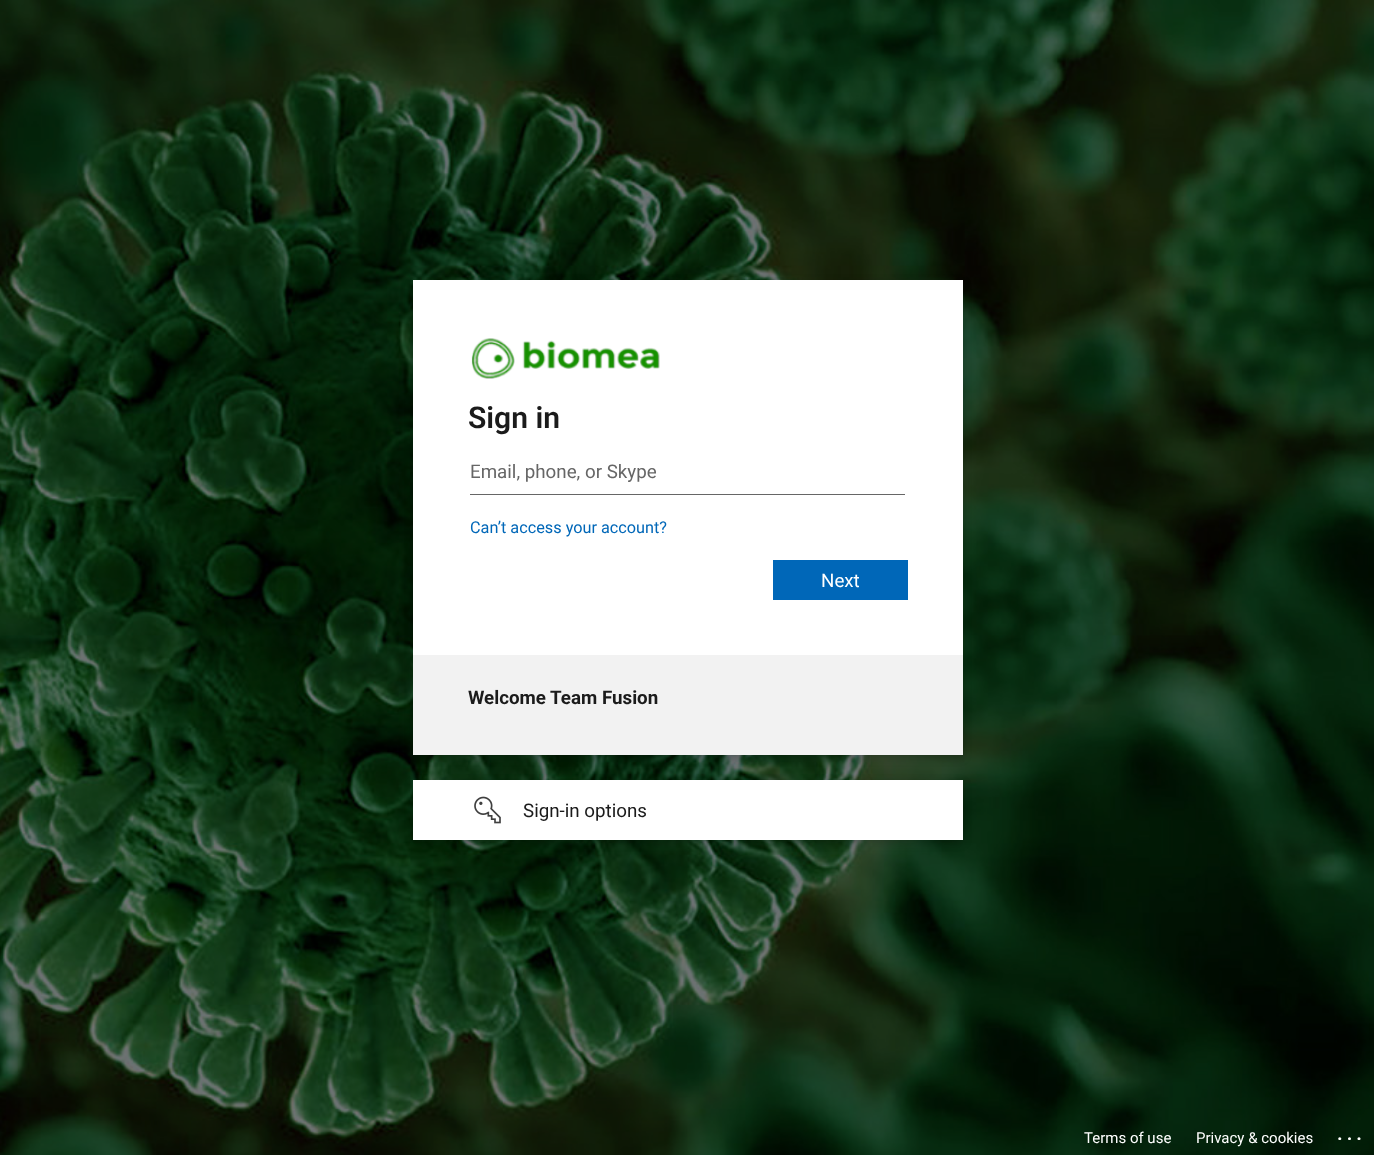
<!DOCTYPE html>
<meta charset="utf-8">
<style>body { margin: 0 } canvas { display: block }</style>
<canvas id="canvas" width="1374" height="1155"></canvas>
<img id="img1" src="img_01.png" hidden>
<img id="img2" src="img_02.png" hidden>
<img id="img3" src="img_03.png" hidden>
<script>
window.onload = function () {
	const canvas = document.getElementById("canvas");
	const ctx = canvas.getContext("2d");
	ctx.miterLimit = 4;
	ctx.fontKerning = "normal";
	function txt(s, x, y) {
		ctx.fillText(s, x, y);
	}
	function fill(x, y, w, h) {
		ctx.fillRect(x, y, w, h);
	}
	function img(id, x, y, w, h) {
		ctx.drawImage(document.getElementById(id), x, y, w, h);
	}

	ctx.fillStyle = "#FFFFFF";
	fill(0, 0, 1374, 1155);
	img("img1", 0, 0, 1374, 1155);
	ctx.fillStyle = "rgba(0, 0, 0, 0.2)";
	ctx.filter = "blur(4px)";
	ctx.beginPath();
	ctx.rect(413, 283, 550, 475);
	ctx.fill();
	ctx.filter = "none";
	ctx.fillStyle = "#FFFFFF";
	fill(413, 280, 550, 375);
	img("img2", 471, 338, 189, 41);
	ctx.fillStyle = "#666666";
	fill(470, 494, 435, 1);
	ctx.fillStyle = "#0067B8";
	fill(773, 560, 135, 40);
	ctx.fillStyle = "#F2F2F2";
	fill(413, 655, 550, 100);
	ctx.fillStyle = "rgba(0, 0, 0, 0.2)";
	ctx.filter = "blur(4px)";
	ctx.beginPath();
	ctx.rect(413, 783, 550, 60);
	ctx.fill();
	ctx.filter = "none";
	ctx.fillStyle = "#FFFFFF";
	fill(413, 780, 550, 60);
	img("img3", 474, 796, 27, 28);
	ctx.font = "600 30px Roboto";
	ctx.fillStyle = "#1B1B1B";
	txt("Sign in", 468, 428);
	ctx.font = "18.75px Roboto";
	ctx.fillStyle = "#666666";
	txt("Email, phone, or Skype", 470, 478);
	ctx.font = "16.25px Roboto";
	ctx.fillStyle = "#0067B8";
	txt("Can’t access your account?", 470, 533);
	ctx.font = "18.75px Roboto";
	ctx.fillStyle = "#FFFFFF";
	txt("Next", 821, 587);
	ctx.font = "bold 18.75px Roboto";
	ctx.fillStyle = "#1B1B1B";
	txt("Welcome Team Fusion", 468, 704);
	ctx.font = "18.75px Roboto";
	txt("Sign-in options", 523, 817);
	ctx.font = "15px Roboto";
	ctx.fillStyle = "#FFFFFF";
	txt("Terms of use", 1084, 1143);
	txt("Privacy & cookies", 1196, 1143);
	ctx.letterSpacing = "4px";
	ctx.font = "600 20px Roboto";
	txt("...", 1337, 1140);
};
</script>
